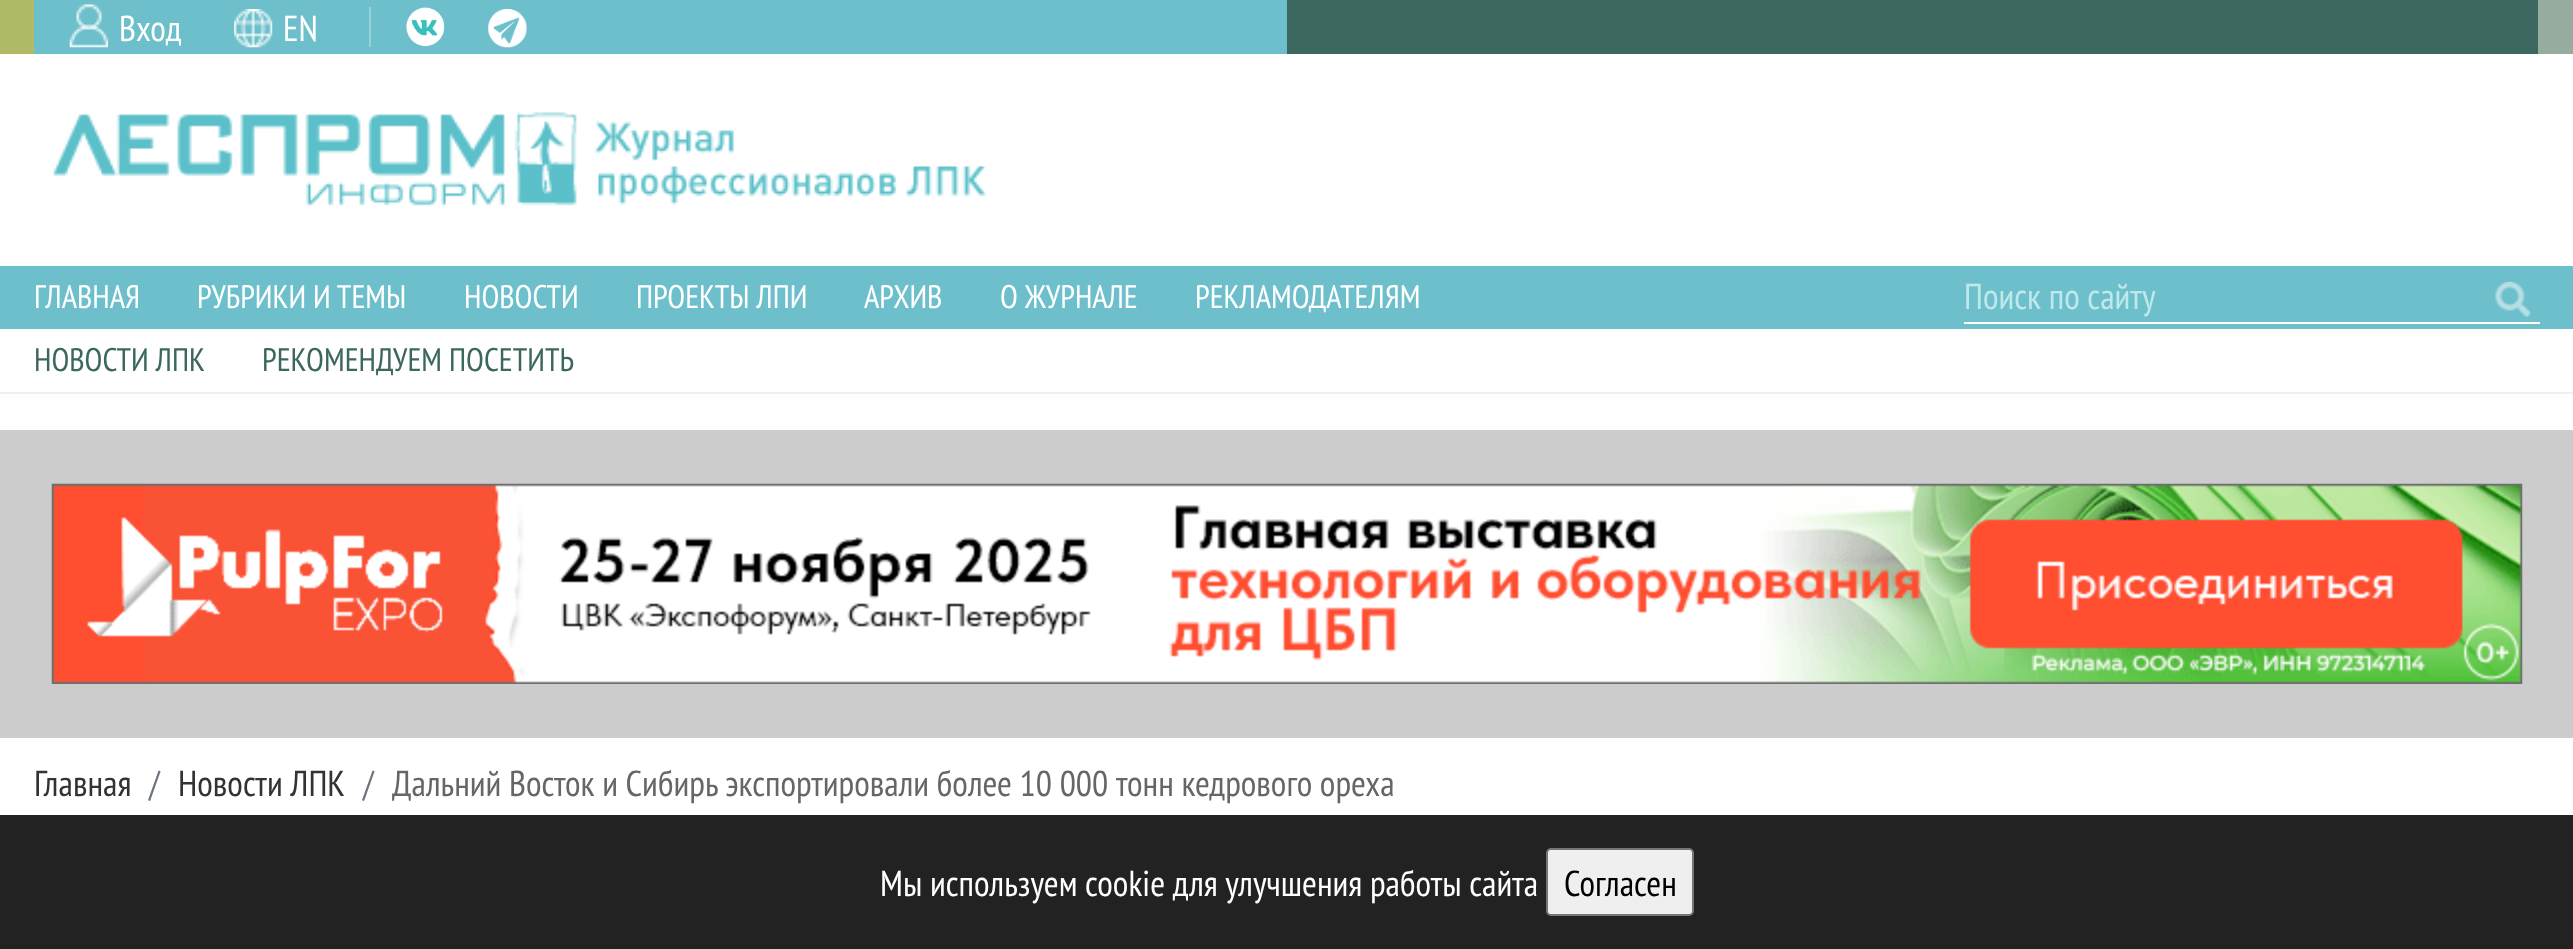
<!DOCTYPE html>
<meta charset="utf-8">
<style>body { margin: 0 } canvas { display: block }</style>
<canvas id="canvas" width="2573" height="949"></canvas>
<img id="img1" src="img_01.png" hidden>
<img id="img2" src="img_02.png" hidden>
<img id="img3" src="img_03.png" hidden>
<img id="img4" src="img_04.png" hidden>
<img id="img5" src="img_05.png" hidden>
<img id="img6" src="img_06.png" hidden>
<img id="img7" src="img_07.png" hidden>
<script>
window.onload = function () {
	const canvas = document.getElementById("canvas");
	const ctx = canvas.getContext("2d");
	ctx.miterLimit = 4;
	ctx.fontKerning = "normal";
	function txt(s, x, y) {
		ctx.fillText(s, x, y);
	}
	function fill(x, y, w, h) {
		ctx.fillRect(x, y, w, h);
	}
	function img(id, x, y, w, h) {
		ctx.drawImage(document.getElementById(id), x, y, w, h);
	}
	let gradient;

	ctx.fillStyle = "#FFFFFF";
	fill(0, 0, 2573, 949);
	gradient = ctx.createLinearGradient(0, 27, 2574, 27);
	gradient.addColorStop(0, "#B1BA67");
	gradient.addColorStop(0.5, "#B1BA67");
	gradient.addColorStop(0.51, "#97AB9F");
	gradient.addColorStop(1, "#97AB9F");
	ctx.fillStyle = gradient;
	fill(0, 0, 2573, 54);
	ctx.fillStyle = "#6DC0CB";
	fill(34, 0, 1253, 54);
	img("img1", 69, 4, 39, 44);
	img("img2", 234, 9, 39, 39);
	ctx.fillStyle = "#99D3DA";
	fill(369, 7, 2, 40);
	img("img3", 406, 7, 39, 40);
	img("img4", 488, 9, 39, 39);
	ctx.fillStyle = "#3C675F";
	fill(1287, 0, 1251, 54);
	img("img5", 52, 112, 934, 94);
	ctx.fillStyle = "#222222";
	fill(0, 815, 2573, 134);
	ctx.fillStyle = "#EFEFEF";
	ctx.beginPath();
	ctx.roundRect(1547, 849, 146, 66, 4);
	ctx.fill();
	ctx.strokeStyle = "#767676";
	ctx.lineWidth = 2;
	ctx.stroke();
	ctx.fillStyle = "#EEEEEE";
	fill(0, 392, 2573, 2);
	ctx.fillStyle = "#6DC0CB";
	fill(0, 266, 2573, 63);
	ctx.fillStyle = "#FFFFFF";
	fill(1964, 322, 576, 2);
	img("img6", 2495, 281, 36, 36);
	ctx.fillStyle = "#CCCCCC";
	fill(0, 430, 2573, 308);
	img("img7", 51, 483, 2472, 201);
	ctx.font = "36px PT Sans Narrow";
	ctx.fillStyle = "#FFFFFF";
	txt("Вход", 119, 41);
	txt("EN", 283, 41);
	txt("Мы используем cookie для улучшения работы сайта", 880, 896);
	ctx.fillStyle = "#000000";
	txt("Согласен", 1564, 896);
	ctx.font = "32.5px PT Sans Narrow";
	ctx.fillStyle = "#FFFFFF";
	txt("ГЛАВНАЯ", 34, 308);
	txt("РУБРИКИ И ТЕМЫ", 197, 308);
	txt("НОВОСТИ", 464, 308);
	txt("ПРОЕКТЫ ЛПИ", 636, 308);
	txt("АРХИВ", 864, 308);
	txt("О ЖУРНАЛЕ", 1000, 308);
	txt("РЕКЛАМОДАТЕЛЯМ", 1195, 308);
	ctx.font = "36px PT Sans Narrow";
	ctx.fillStyle = "#BFE8EA";
	txt("Поиск по сайту", 1964, 309);
	ctx.font = "32.5px PT Sans Narrow";
	ctx.fillStyle = "#3C675F";
	txt("НОВОСТИ ЛПК", 34, 371);
	txt("РЕКОМЕНДУЕМ ПОСЕТИТЬ", 262, 371);
	ctx.font = "36px PT Sans Narrow";
	ctx.fillStyle = "#333333";
	txt("Главная", 34, 796);
	ctx.fillStyle = "#6C757D";
	txt("/", 149, 796);
	ctx.fillStyle = "#333333";
	txt("Новости ЛПК", 178, 796);
	ctx.fillStyle = "#6C757D";
	txt("/", 363, 796);
	ctx.fillStyle = "#666666";
	txt("Дальний Восток и Сибирь экспортировали более 10 000 тонн кедрового ореха", 392, 796);
};
</script>
